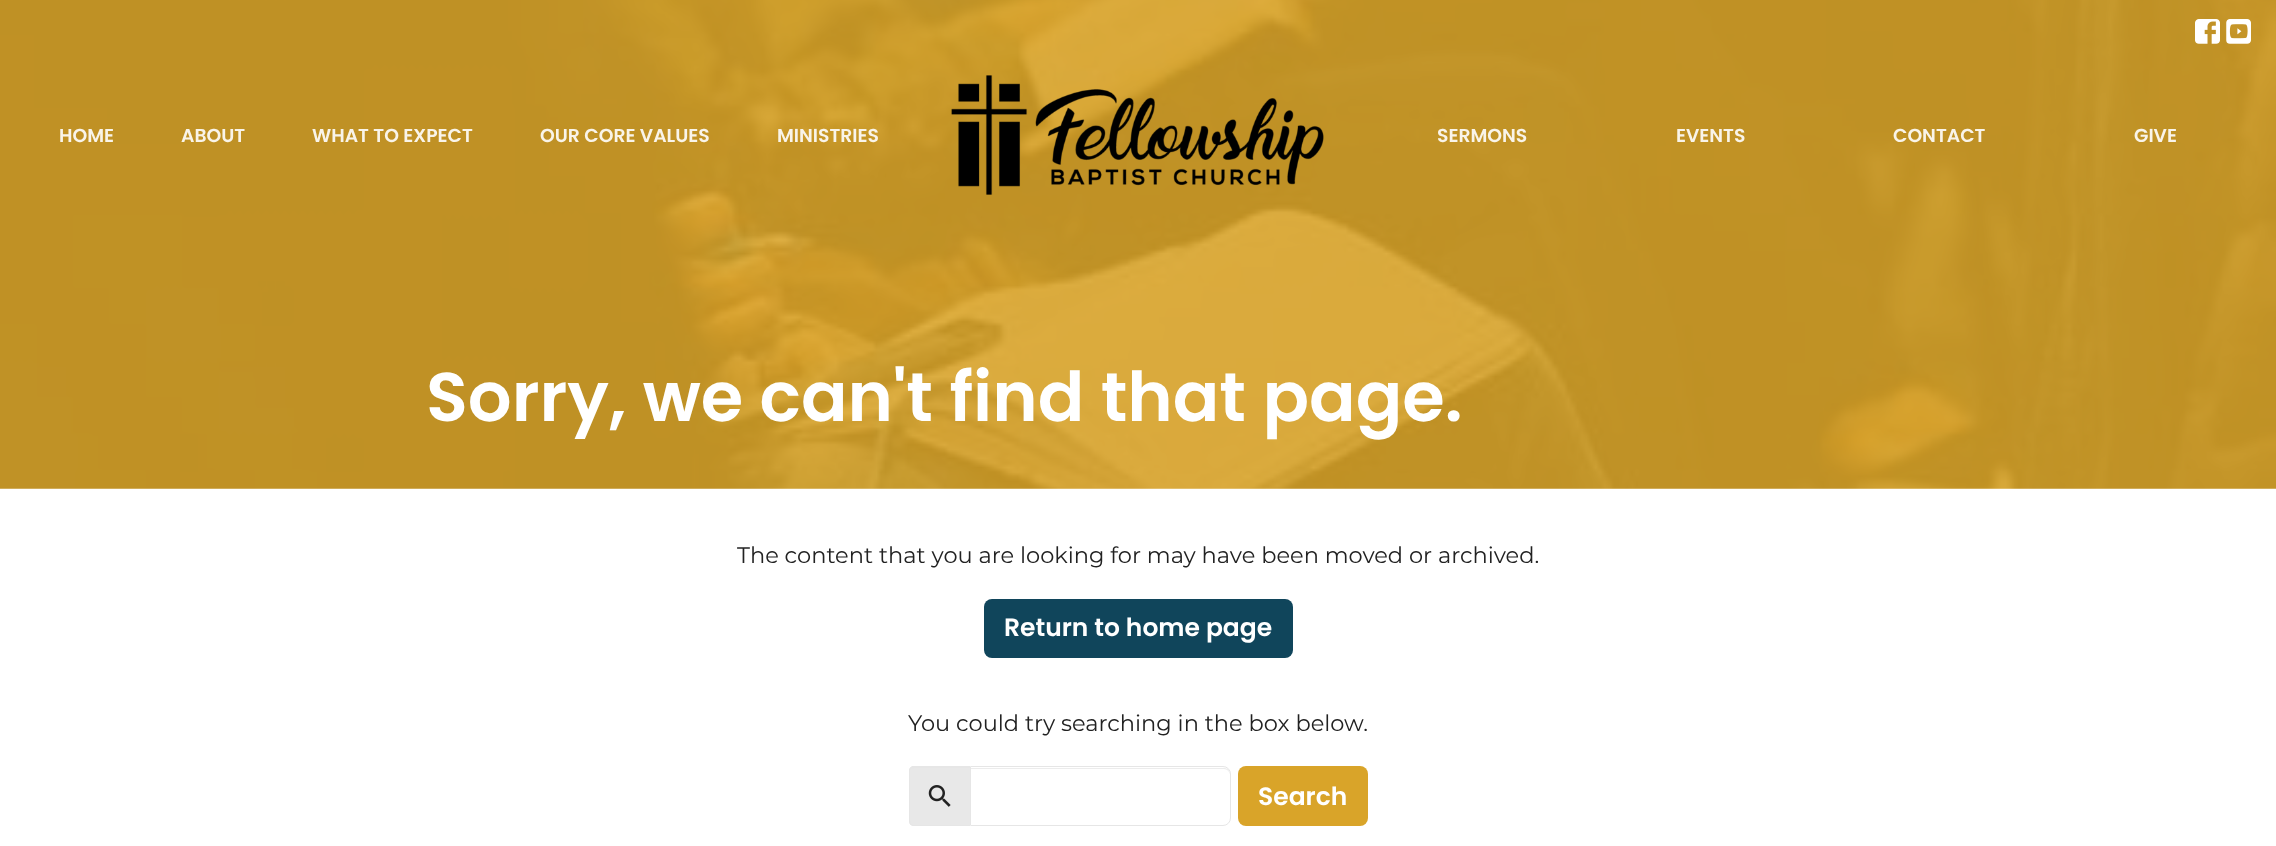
<!DOCTYPE html>
<meta charset="utf-8">
<style>body { margin: 0 } canvas { display: block }</style>
<canvas id="canvas" width="2276" height="846"></canvas>
<img id="img1" src="img_04.png" hidden>
<img id="img2" src="img_01.png" hidden>
<img id="img3" src="img_02.png" hidden>
<img id="img4" src="img_03.png" hidden>
<img id="img5" src="img_05.png" hidden>
<script>
window.onload = function () {
	const canvas = document.getElementById("canvas");
	const ctx = canvas.getContext("2d");
	ctx.miterLimit = 4;
	ctx.fontKerning = "normal";
	function txt(s, x, y) {
		ctx.fillText(s, x, y);
	}
	function fill(x, y, w, h) {
		ctx.fillRect(x, y, w, h);
	}
	function round(x, y, w, h, r) {
		ctx.beginPath();
		ctx.roundRect(x, y, w, h, r);
		ctx.fill();
	}
	function img(id, x, y, w, h) {
		ctx.drawImage(document.getElementById(id), x, y, w, h);
	}

	ctx.fillStyle = "#FFFFFF";
	fill(0, 0, 2276, 846);
	img("img1", 0, 0, 2276, 489);
	img("img2", 2195, 19, 25, 25);
	img("img3", 2226, 19, 25, 25);
	img("img4", 951, 75, 373, 120);
	ctx.fillStyle = "#10455B";
	round(984, 599, 309, 59, 8);
	ctx.fillStyle = "#E8E8E8";
	ctx.beginPath();
	ctx.roundRect(909, 766, 61, 60, [5, 0, 0, 5]);
	ctx.fill();
	ctx.fillStyle = "#E6E6E6";
	ctx.beginPath();
	ctx.moveTo(914, 766);
	ctx.lineTo(970, 766);
	ctx.lineTo(970, 826);
	ctx.lineTo(914, 826);
	ctx.bezierCurveTo(911, 826, 909, 824, 909, 821);
	ctx.lineTo(909, 771);
	ctx.bezierCurveTo(909, 768, 911, 766, 914, 766);
	ctx.closePath();
	ctx.moveTo(914, 768);
	ctx.lineTo(970, 768);
	ctx.lineTo(970, 825);
	ctx.lineTo(914, 825);
	ctx.bezierCurveTo(912, 825, 910, 823, 910, 821);
	ctx.lineTo(910, 771);
	ctx.bezierCurveTo(910, 769, 912, 768, 914, 768);
	ctx.closePath();
	ctx.fill("evenodd");
	img("img5", 928, 785, 23, 22);
	ctx.fillStyle = "#ECECEC";
	ctx.beginPath();
	ctx.moveTo(971, 769);
	ctx.lineTo(1224, 769);
	ctx.bezierCurveTo(1227, 769, 1230, 772, 1230, 775);
	ctx.bezierCurveTo(1230, 772, 1229, 769, 1225, 768);
	ctx.lineTo(971, 768);
	ctx.closePath();
	ctx.fill();
	ctx.beginPath();
	ctx.roundRect(970.5, 766.5, 260, 59, [0, 7.5, 7.5, 0]);
	ctx.strokeStyle = "#E6E6E6";
	ctx.stroke();
	ctx.fillStyle = "#D9A429";
	round(1238, 766, 130, 60, 8);
	ctx.font = "600 18.75px Poppins";
	ctx.fillStyle = "#F9F4E9";
	txt("HOME", 59, 142);
	txt("ABOUT", 181, 142);
	txt("WHAT TO EXPECT", 312, 142);
	txt("OUR CORE VALUES", 540, 142);
	txt("MINISTRIES", 777, 142);
	txt("SERMONS", 1437, 142);
	txt("EVENTS", 1676, 142);
	txt("CONTACT", 1893, 142);
	txt("GIVE", 2134, 142);
	ctx.font = "600 68.75px Poppins";
	ctx.fillStyle = "#FFFFFF";
	txt("Sorry, we can't find that page.", 426, 421);
	ctx.font = "22.5px Montserrat";
	ctx.fillStyle = "#222222";
	txt("The content that you are looking for may have been moved or archived.", 737, 563);
	ctx.font = "600 25px Poppins";
	ctx.fillStyle = "#FFFFFF";
	txt("Return to home page", 1004, 636);
	ctx.font = "22.5px Montserrat";
	ctx.fillStyle = "#222222";
	txt("You could try searching in the box below.", 908, 731);
	ctx.font = "600 25px Poppins";
	ctx.fillStyle = "#FFFFFF";
	txt("Search", 1258, 805);
};
</script>
